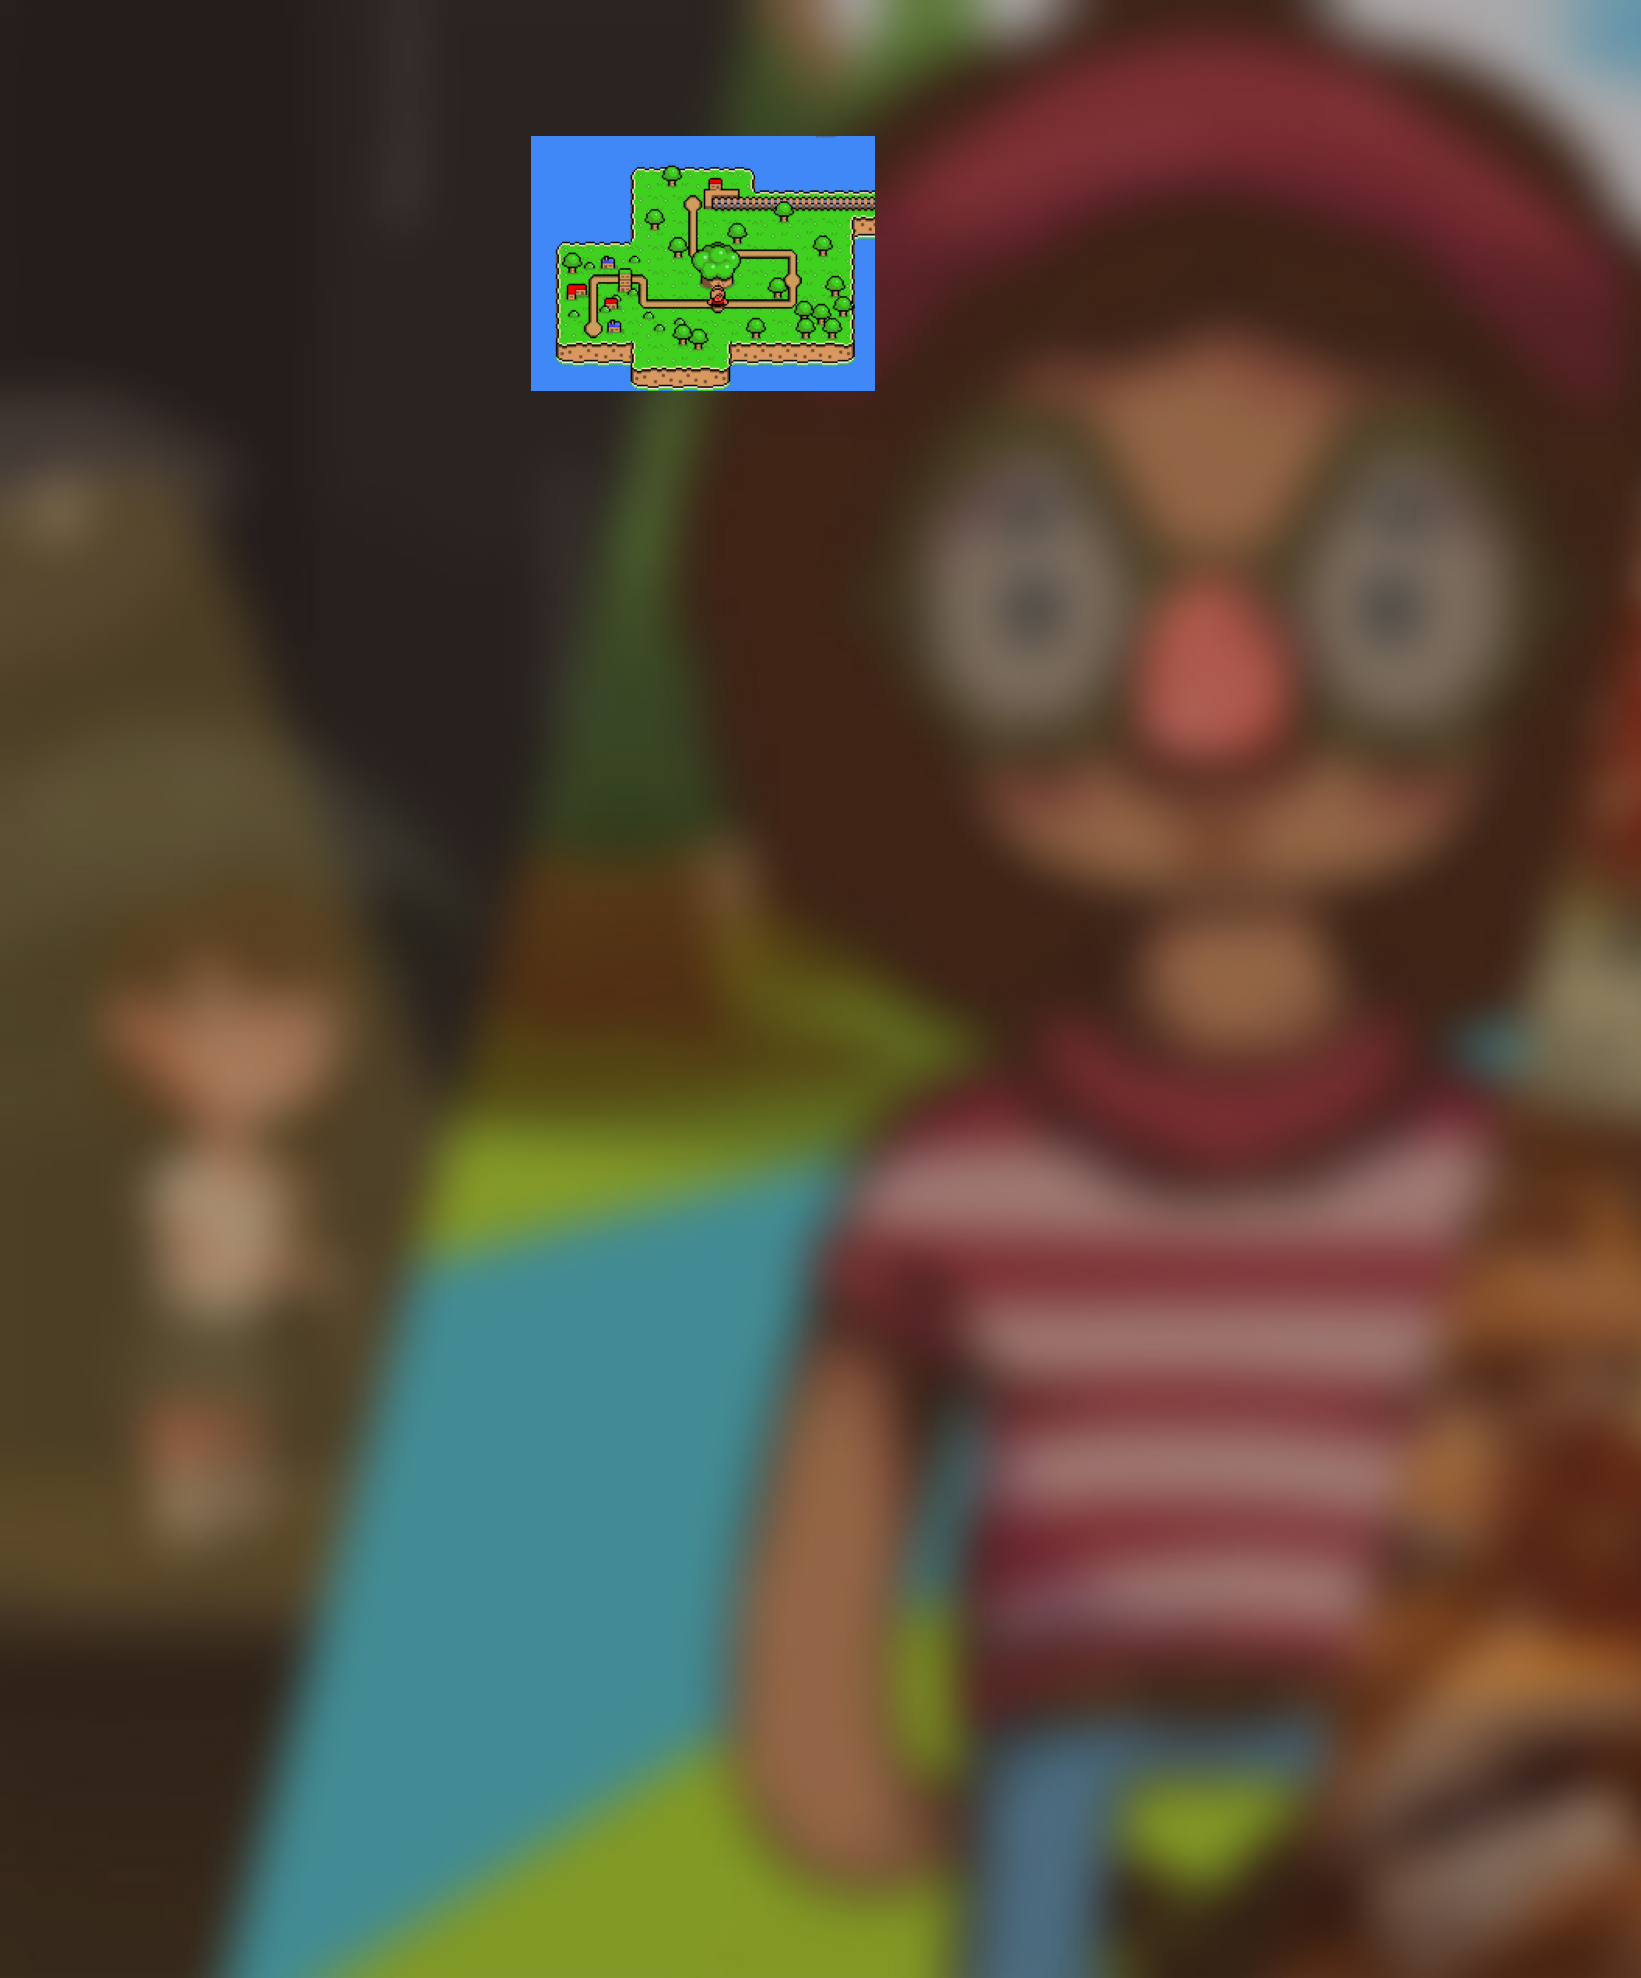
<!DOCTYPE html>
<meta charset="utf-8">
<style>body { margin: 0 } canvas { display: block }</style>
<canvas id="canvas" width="1641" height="1978"></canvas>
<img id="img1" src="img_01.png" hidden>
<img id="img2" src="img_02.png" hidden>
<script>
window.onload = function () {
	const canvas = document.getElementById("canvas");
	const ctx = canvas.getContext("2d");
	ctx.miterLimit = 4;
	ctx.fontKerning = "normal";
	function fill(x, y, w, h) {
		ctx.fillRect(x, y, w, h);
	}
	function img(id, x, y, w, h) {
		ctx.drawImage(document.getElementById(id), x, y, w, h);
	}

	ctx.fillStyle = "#FFFFFF";
	fill(0, 0, 1641, 1978);
	img("img1", 0, 0, 1641, 1978);
	img("img2", 531, 136, 344, 255);
};
</script>
